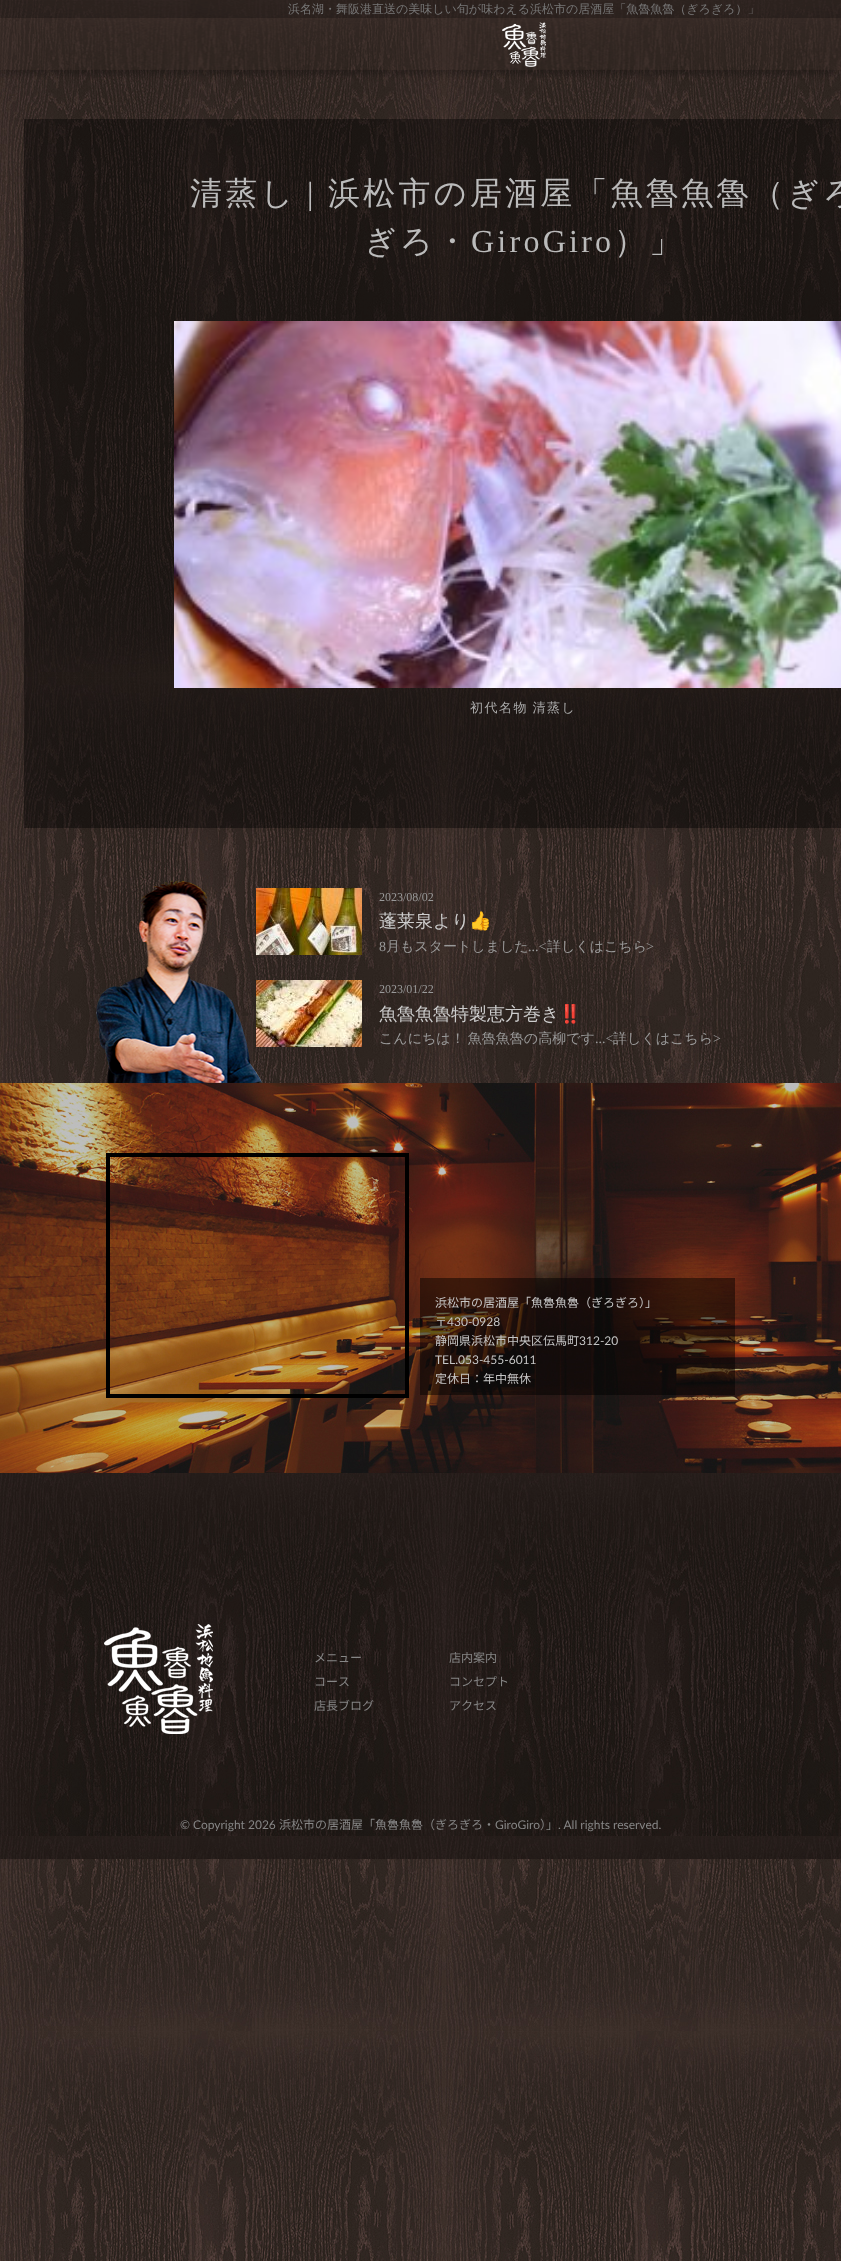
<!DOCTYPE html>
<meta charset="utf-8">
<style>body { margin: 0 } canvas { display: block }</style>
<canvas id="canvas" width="841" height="2261"></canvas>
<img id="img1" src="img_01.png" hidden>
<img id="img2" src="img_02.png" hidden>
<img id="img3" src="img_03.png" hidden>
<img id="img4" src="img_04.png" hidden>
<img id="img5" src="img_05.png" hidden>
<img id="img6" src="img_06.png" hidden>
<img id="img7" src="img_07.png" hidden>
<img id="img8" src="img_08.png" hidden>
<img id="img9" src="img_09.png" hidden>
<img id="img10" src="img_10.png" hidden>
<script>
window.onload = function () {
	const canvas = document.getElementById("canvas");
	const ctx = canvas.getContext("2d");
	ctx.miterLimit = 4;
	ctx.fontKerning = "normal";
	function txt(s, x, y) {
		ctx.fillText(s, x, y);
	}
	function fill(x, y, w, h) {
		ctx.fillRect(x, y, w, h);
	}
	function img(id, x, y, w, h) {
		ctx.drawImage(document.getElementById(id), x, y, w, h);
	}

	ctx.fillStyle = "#FFFFFF";
	fill(0, 0, 841, 2261);
	img("img1", 0, 0, 841, 2261);
	ctx.fillStyle = "rgba(0, 0, 0, 0.2)";
	ctx.filter = "blur(2.5px)";
	ctx.beginPath();
	ctx.rect(0, 5, 841, 70);
	ctx.fill();
	ctx.filter = "none";
	img("img2", 0, 0, 841, 70);
	img("img3", 502, 22, 44, 45);
	ctx.fillStyle = "rgba(0, 0, 0, 0.4)";
	fill(24, 119, 817, 709);
	img("img4", 174, 321, 667, 367);
	img("img5", 96, 880, 166, 203);
	img("img6", 256, 888, 106, 67);
	img("img7", 256, 980, 106, 67);
	img("img8", 0, 1083, 841, 390);
	ctx.strokeStyle = "#000000";
	ctx.lineWidth = 4;
	ctx.strokeRect(108, 1155, 299, 241);
	ctx.fillStyle = "rgba(0, 0, 0, 0.48)";
	fill(420, 1278, 315, 117);
	img("img9", 0, 1473, 841, 386);
	img("img10", 104, 1624, 109, 110);
	ctx.font = "500 12px WenQuanYi Zen Hei";
	ctx.fillStyle = "#777777";
	txt("浜名湖・舞阪港直送の美味しい旬が味わえる浜松市の居酒屋「魚魯魚魯（ぎろぎろ）」", 288, 13);
	ctx.letterSpacing = "3.25px";
	ctx.font = "500 32px WenQuanYi Zen Hei";
	ctx.fillStyle = "#BBBBBB";
	txt("清蒸し", 190, 204);
	ctx.font = "32px Liberation Serif";
	txt("|", 307, 204);
	ctx.font = "500 32px WenQuanYi Zen Hei";
	txt("浜松市の居酒屋「魚魯魚魯（ぎろ", 328, 204);
	txt("ぎろ・", 364, 252);
	ctx.font = "32px Liberation Serif";
	txt("GiroGiro", 471, 252);
	ctx.font = "500 32px WenQuanYi Zen Hei";
	txt("）」", 614, 252);
	ctx.letterSpacing = "1.5px";
	ctx.wordSpacing = "-1px";
	ctx.font = "500 13px WenQuanYi Zen Hei";
	ctx.fillStyle = "#AAAAAA";
	txt("初代名物 清蒸し", 470, 712);
	ctx.letterSpacing = "0px";
	ctx.wordSpacing = "0px";
	ctx.font = "12px Liberation Serif";
	ctx.fillStyle = "#999999";
	txt("2023/08/02", 379, 901);
	ctx.font = "500 18px WenQuanYi Zen Hei";
	ctx.fillStyle = "#CCCCCC";
	txt("蓬莱泉より", 379, 927);
	ctx.font = "18px Noto Color Emoji";
	txt("👍", 469, 927);
	ctx.font = "14px Liberation Serif";
	ctx.fillStyle = "#999999";
	txt("8", 379, 951);
	ctx.font = "500 14px WenQuanYi Zen Hei";
	txt("月もスタートしました", 386, 951);
	ctx.font = "14px Liberation Serif";
	txt("...<", 528, 951);
	ctx.font = "500 14px WenQuanYi Zen Hei";
	txt("詳しくはこちら", 547, 951);
	ctx.font = "14px Liberation Serif";
	txt(">", 646, 951);
	ctx.font = "12px Liberation Serif";
	txt("2023/01/22", 379, 993);
	ctx.font = "500 18px WenQuanYi Zen Hei";
	ctx.fillStyle = "#CCCCCC";
	txt("魚魯魚魯特製恵方巻き", 379, 1020);
	ctx.font = "18px Noto Color Emoji";
	txt("‼️", 559, 1020);
	ctx.wordSpacing = "-1px";
	ctx.font = "500 14px WenQuanYi Zen Hei";
	ctx.fillStyle = "#999999";
	txt("こんにちは！ 魚魯魚魯の高柳です", 379, 1043);
	ctx.wordSpacing = "0px";
	ctx.font = "14px Liberation Serif";
	txt("...<", 595, 1043);
	ctx.font = "500 14px WenQuanYi Zen Hei";
	txt("詳しくはこちら", 613, 1043);
	ctx.font = "14px Liberation Serif";
	txt(">", 713, 1043);
	ctx.font = "12px Noto Sans JP";
	ctx.fillStyle = "#C5C5C5";
	txt("浜松市の居酒屋「魚魯魚魯（ぎろぎろ）」", 435, 1307);
	txt("〒", 435, 1326);
	ctx.font = "12px Lato";
	txt("430-0928", 447, 1326);
	ctx.font = "12px Noto Sans JP";
	txt("静岡県浜松市中央区伝馬町", 435, 1345);
	ctx.font = "12px Lato";
	txt("312-20", 579, 1345);
	txt("TEL.053-455-6011", 435, 1364);
	ctx.font = "12px Noto Sans JP";
	txt("定休日：年中無休", 435, 1383);
	ctx.fillStyle = "#868686";
	txt("メニュー", 314, 1662);
	txt("コース", 314, 1686);
	txt("店長ブログ", 314, 1710);
	txt("店内案内", 449, 1662);
	txt("コンセプト", 449, 1686);
	txt("アクセス", 449, 1710);
	ctx.font = "12px Lato";
	txt("© Copyright 2026", 180, 1829);
	ctx.font = "12px Noto Sans JP";
	txt("浜松市の居酒屋「魚魯魚魯（ぎろぎろ・", 279, 1829);
	ctx.font = "12px Lato";
	txt("GiroGiro", 495, 1829);
	ctx.font = "12px Noto Sans JP";
	txt("）」", 540, 1829);
	ctx.font = "12px Lato";
	txt(". All rights reserved.", 558, 1829);
};
</script>
